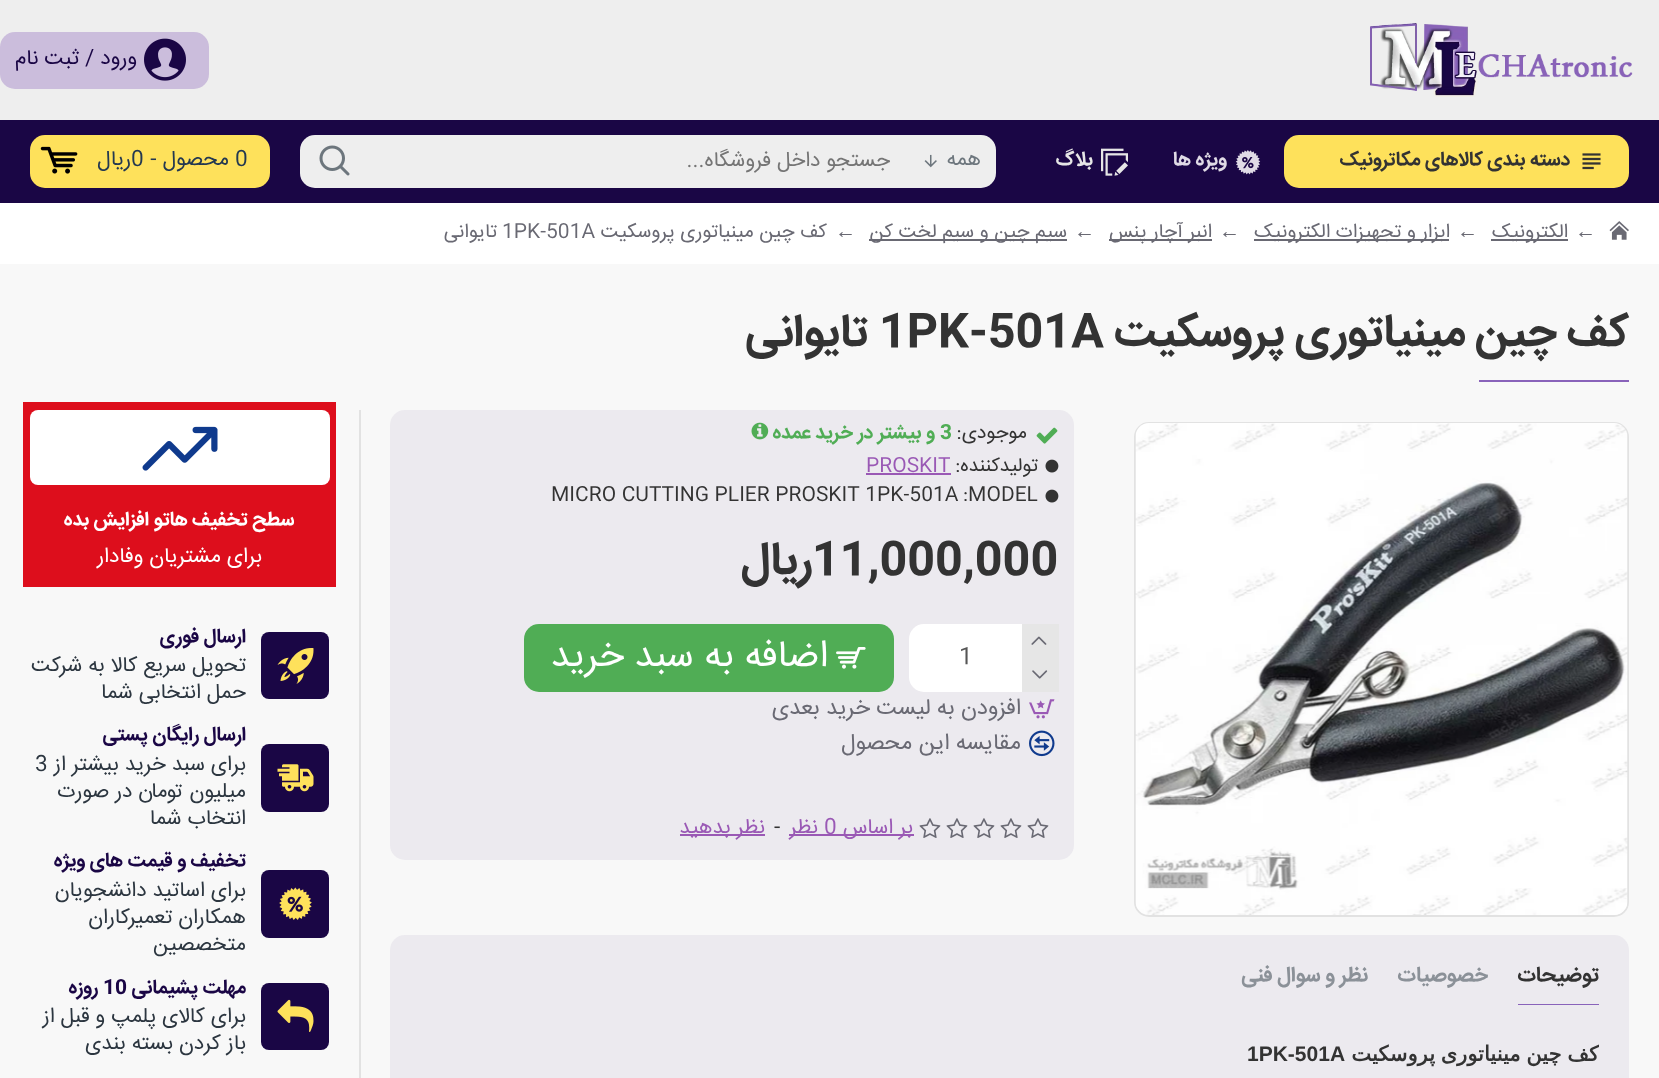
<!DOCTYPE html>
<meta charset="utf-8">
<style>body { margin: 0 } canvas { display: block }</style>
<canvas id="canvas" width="1659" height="1078"></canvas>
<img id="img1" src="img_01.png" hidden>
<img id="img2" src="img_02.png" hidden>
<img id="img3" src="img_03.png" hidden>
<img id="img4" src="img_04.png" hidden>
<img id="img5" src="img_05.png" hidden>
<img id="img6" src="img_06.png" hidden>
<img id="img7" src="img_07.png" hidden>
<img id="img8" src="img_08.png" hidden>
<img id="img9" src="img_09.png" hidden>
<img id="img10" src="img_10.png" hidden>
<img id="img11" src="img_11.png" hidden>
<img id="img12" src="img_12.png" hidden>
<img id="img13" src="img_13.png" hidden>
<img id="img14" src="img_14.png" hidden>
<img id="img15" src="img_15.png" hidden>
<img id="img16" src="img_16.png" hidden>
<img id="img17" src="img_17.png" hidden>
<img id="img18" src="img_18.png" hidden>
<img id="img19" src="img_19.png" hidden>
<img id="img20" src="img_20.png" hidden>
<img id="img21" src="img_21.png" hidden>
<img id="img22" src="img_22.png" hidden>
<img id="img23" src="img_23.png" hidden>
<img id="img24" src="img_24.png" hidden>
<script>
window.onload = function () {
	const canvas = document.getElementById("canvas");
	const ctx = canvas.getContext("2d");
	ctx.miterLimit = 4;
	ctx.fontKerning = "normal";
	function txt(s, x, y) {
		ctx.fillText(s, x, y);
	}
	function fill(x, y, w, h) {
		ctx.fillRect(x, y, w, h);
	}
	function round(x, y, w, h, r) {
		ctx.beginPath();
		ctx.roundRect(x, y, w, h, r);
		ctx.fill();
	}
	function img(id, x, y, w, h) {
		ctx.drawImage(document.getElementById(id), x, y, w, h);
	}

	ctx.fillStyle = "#F8F8F8";
	fill(0, 0, 1659, 1078);
	ctx.fillStyle = "#EEEEEE";
	fill(0, 0, 1659, 120);
	img("img1", 1370, 23, 263, 74);
	ctx.fillStyle = "#CBBDDC";
	round(0, 32, 209, 57, 15);
	img("img2", 144, 38, 42, 43);
	ctx.fillStyle = "#1A0645";
	fill(0, 120, 1659, 83);
	ctx.fillStyle = "#FEE15B";
	round(1284, 135, 345, 53, 15);
	img("img3", 1582, 153, 19, 17);
	img("img4", 1235, 150, 26, 25);
	img("img5", 1101, 148, 27, 28);
	ctx.fillStyle = "#EEEEEE";
	ctx.beginPath();
	ctx.roundRect(908, 135, 88, 53, [0, 15, 15, 0]);
	ctx.fill();
	img("img6", 924, 154, 13, 14);
	fill(368, 135, 540, 53);
	ctx.beginPath();
	ctx.roundRect(300, 135, 68, 53, [15, 0, 0, 15]);
	ctx.fill();
	img("img7", 319, 145, 31, 31);
	ctx.fillStyle = "#FEE15B";
	round(30, 135, 240, 53, 15);
	img("img8", 40, 146, 38, 28);
	ctx.fillStyle = "#FFFFFF";
	fill(0, 203, 1659, 61);
	img("img9", 1609, 221, 20, 19);
	ctx.fillStyle = "#696973";
	fill(1491, 239, 77, 2);
	fill(1254, 239, 195, 2);
	fill(1109, 239, 103, 2);
	fill(869, 239, 198, 2);
	ctx.fillStyle = "#8963BA";
	fill(1479, 380, 150, 2);
	ctx.beginPath();
	ctx.roundRect(1135, 423, 493, 493, 14);
	ctx.strokeStyle = "#E2E2E2";
	ctx.lineWidth = 2;
	ctx.stroke();
	img("img10", 1135, 423, 493, 492);
	ctx.fillStyle = "#ECEAEF";
	ctx.beginPath();
	ctx.roundRect(390, 410, 684, 177, [15, 15, 0, 0]);
	ctx.fill();
	img("img11", 1036, 427, 22, 17);
	img("img12", 751, 422, 18, 18);
	img("img13", 1045, 459, 14, 14);
	ctx.fillStyle = "#9A59B5";
	fill(866, 473, 85, 2);
	img("img13", 1045, 489, 14, 14);
	ctx.fillStyle = "#ECEAEF";
	fill(390, 587, 684, 211);
	ctx.fillStyle = "#FFFFFF";
	round(909, 624, 150, 68, 15);
	ctx.fillStyle = "#E6E6E6";
	fill(1022, 624, 37, 68);
	img("img14", 1031, 636, 16, 9);
	img("img15", 1032, 670, 16, 9);
	ctx.fillStyle = "#50AD55";
	round(524, 624, 370, 68, 15);
	img("img16", 836, 647, 30, 22);
	img("img17", 1029, 699, 26, 20);
	img("img18", 1029, 730, 26, 27);
	ctx.fillStyle = "#ECEAEF";
	ctx.beginPath();
	ctx.roundRect(390, 798, 684, 62, [0, 0, 15, 15]);
	ctx.fill();
	img("img19", 1027, 818, 22, 20);
	img("img19", 1000, 818, 22, 20);
	img("img19", 973, 818, 22, 20);
	img("img19", 946, 818, 22, 20);
	img("img19", 919, 818, 22, 20);
	ctx.fillStyle = "#9A59B5";
	fill(789, 834, 125, 2);
	fill(680, 834, 85, 2);
	ctx.fillStyle = "#ECEAEF";
	round(390, 935, 1239, 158, 15);
	ctx.fillStyle = "#8963BA";
	fill(1518, 1004, 81, 1);
	ctx.fillStyle = "#E2E2E2";
	fill(359, 410, 2, 668);
	ctx.fillStyle = "#DD0E1C";
	fill(23, 402, 313, 185);
	ctx.fillStyle = "#FFFFFF";
	round(30, 410, 300, 75, 8);
	img("img20", 142, 426, 76, 45);
	ctx.fillStyle = "#1A0645";
	round(261, 632, 68, 67, 8);
	img("img21", 277, 648, 37, 36);
	round(261, 744, 68, 68, 8);
	img("img22", 277, 764, 37, 28);
	round(261, 870, 68, 68, 8);
	img("img23", 279, 887, 33, 33);
	round(261, 983, 68, 67, 8);
	img("img24", 277, 999, 37, 33);
	ctx.direction = "rtl";
	ctx.font = "21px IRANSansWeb";
	txt("ورود / ثبت نام", 137, 64);
	ctx.font = "bold 19.5px IRANSansWeb";
	ctx.fillStyle = "#333333";
	txt("دسته بندی کالاهای مکاترونیک", 1570, 165);
	ctx.fillStyle = "#E0DBE6";
	txt("ویژه ها", 1227, 165);
	ctx.fillStyle = "#E6E6E6";
	txt("بلاگ", 1093, 165);
	ctx.font = "21px IRANSansWeb";
	ctx.fillStyle = "#6D767D";
	txt("همه", 981, 165);
	ctx.fillStyle = "#757575";
	txt("جستجو داخل فروشگاه...", 890, 166);
	ctx.direction = "ltr";
	ctx.fillStyle = "#233851";
	txt("0", 235, 165);
	ctx.direction = "rtl";
	txt("محصول -", 229, 165);
	ctx.direction = "ltr";
	txt("0", 131, 165);
	ctx.direction = "rtl";
	txt("ریال", 131, 165);
	ctx.direction = "ltr";
	ctx.font = "21px Liberation Serif";
	ctx.fillStyle = "#696973";
	ctx.save();
	ctx.translate(1596, 231);
	ctx.rotate(180 * Math.PI / 180);
	ctx.fillText("→", 0, 0);
	ctx.restore();
	ctx.direction = "rtl";
	ctx.font = "19.5px IRANSansWeb";
	txt("الکترونیک", 1568, 237);
	ctx.direction = "ltr";
	ctx.font = "21px Liberation Serif";
	ctx.save();
	ctx.translate(1478, 231);
	ctx.rotate(180 * Math.PI / 180);
	ctx.fillText("→", 0, 0);
	ctx.restore();
	ctx.direction = "rtl";
	ctx.font = "19.5px IRANSansWeb";
	txt("ابزار و تجهیزات الکترونیک", 1450, 237);
	ctx.direction = "ltr";
	ctx.font = "21px Liberation Serif";
	ctx.save();
	ctx.translate(1240, 231);
	ctx.rotate(180 * Math.PI / 180);
	ctx.fillText("→", 0, 0);
	ctx.restore();
	ctx.direction = "rtl";
	ctx.font = "19.5px IRANSansWeb";
	txt("انبر آچار پنس", 1212, 237);
	ctx.direction = "ltr";
	ctx.font = "21px Liberation Serif";
	ctx.save();
	ctx.translate(1095, 231);
	ctx.rotate(180 * Math.PI / 180);
	ctx.fillText("→", 0, 0);
	ctx.restore();
	ctx.direction = "rtl";
	ctx.font = "19.5px IRANSansWeb";
	txt("سیم چین و سیم لخت کن", 1067, 237);
	ctx.direction = "ltr";
	ctx.font = "21px Liberation Serif";
	ctx.save();
	ctx.translate(856, 231);
	ctx.rotate(180 * Math.PI / 180);
	ctx.fillText("→", 0, 0);
	ctx.restore();
	ctx.direction = "rtl";
	ctx.font = "19.5px IRANSansWeb";
	txt("کف چین مینیاتوری پروسکیت", 827, 237);
	ctx.direction = "ltr";
	txt("1PK-501A", 502, 237);
	ctx.direction = "rtl";
	txt("تایوانی", 497, 237);
	ctx.font = "bold 45px IRANSansWeb";
	ctx.fillStyle = "#333333";
	txt("کف چین مینیاتوری پروسکیت", 1629, 345);
	ctx.direction = "ltr";
	txt("1PK-501A", 879, 345);
	ctx.direction = "rtl";
	txt("تایوانی", 868, 345);
	ctx.font = "19.5px IRANSansWeb";
	txt("موجودی:", 1027, 438);
	ctx.direction = "ltr";
	ctx.font = "bold 19.5px IRANSansWeb";
	ctx.fillStyle = "#50AD55";
	txt("3", 940, 438);
	ctx.direction = "rtl";
	txt("و بیشتر در خرید عمده", 935, 438);
	ctx.font = "19.5px IRANSansWeb";
	ctx.fillStyle = "#333333";
	txt("تولیدکننده:", 1038, 471);
	ctx.direction = "ltr";
	ctx.fillStyle = "#9A59B5";
	txt("PROSKIT", 866, 471);
	ctx.fillStyle = "#333333";
	txt(":MODEL", 963, 500);
	txt("MICRO CUTTING PLIER PROSKIT 1PK-501A", 551, 500);
	ctx.font = "bold 45px IRANSansWeb";
	txt("11,000,000", 812, 573);
	ctx.direction = "rtl";
	txt("ریال", 812, 573);
	ctx.direction = "ltr";
	ctx.font = "22.5px IRANSansWeb";
	ctx.fillStyle = "#555555";
	txt("1", 959, 663);
	ctx.direction = "rtl";
	ctx.font = "37.5px IRANSansWeb";
	ctx.fillStyle = "#FFFFFF";
	txt("اضافه به سبد خرید", 828, 666);
	ctx.font = "22.5px IRANSansWeb";
	ctx.fillStyle = "#696973";
	txt("افزودن به لیست خرید بعدی", 1021, 714);
	txt("مقایسه این محصول", 1021, 749);
	ctx.font = "21px IRANSansWeb";
	ctx.fillStyle = "#9A59B5";
	txt("بر اساس", 913, 833);
	ctx.direction = "ltr";
	txt("0", 824, 833);
	ctx.direction = "rtl";
	txt("نظر", 818, 833);
	ctx.direction = "ltr";
	ctx.fillStyle = "#333333";
	txt("-", 774, 833);
	ctx.direction = "rtl";
	ctx.fillStyle = "#9A59B5";
	txt("نظر بدهید", 765, 833);
	ctx.font = "bold 21px IRANSansWeb";
	ctx.fillStyle = "#333333";
	txt("توضیحات", 1599, 981);
	ctx.fillStyle = "#8B9198";
	txt("خصوصیات", 1488, 981);
	txt("نظر و سوال فنی", 1368, 981);
	ctx.save();
	ctx.beginPath();
	ctx.rect(420, 1035, 1179, 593);
	ctx.clip();
	ctx.wordSpacing = "-1px";
	ctx.font = "bold 21px DejaVu Sans";
	ctx.fillStyle = "#333333";
	txt("کف چین مینیاتوری پروسکیت", 1599, 1061);
	ctx.restore();
	ctx.direction = "ltr";
	ctx.font = "bold 21px Liberation Sans";
	ctx.fillStyle = "#333333";
	txt("1PK-501A", 1247, 1061);
	ctx.direction = "rtl";
	ctx.font = "bold 19.5px IRANSansWeb";
	ctx.fillStyle = "#FFFFFF";
	txt("سطح تخفیف هاتو افزایش بده", 294, 525);
	ctx.font = "21px IRANSansWeb";
	txt("برای مشتریان وفادار", 262, 562);
	ctx.font = "bold 19.5px IRANSansWeb";
	ctx.fillStyle = "#1A0645";
	txt("ارسال فوری", 246, 642);
	ctx.font = "21px IRANSansWeb";
	ctx.fillStyle = "#2C3640";
	txt("تحویل سریع کالا به شرکت", 246, 671);
	txt("حمل انتخابی شما", 246, 698);
	ctx.font = "bold 19.5px IRANSansWeb";
	ctx.fillStyle = "#1A0645";
	txt("ارسال رایگان پستی", 246, 740);
	ctx.font = "21px IRANSansWeb";
	ctx.fillStyle = "#2C3640";
	txt("برای سبد خرید بیشتر از", 246, 770);
	ctx.direction = "ltr";
	txt("3", 35, 770);
	ctx.direction = "rtl";
	txt("میلیون تومان در صورت", 246, 797);
	txt("انتخاب شما", 246, 824);
	ctx.font = "bold 19.5px IRANSansWeb";
	ctx.fillStyle = "#1A0645";
	txt("تخفیف و قیمت های ویژه", 246, 866);
	ctx.font = "21px IRANSansWeb";
	ctx.fillStyle = "#2C3640";
	txt("برای اساتید دانشجویان", 246, 896);
	txt("همکاران تعمیرکاران", 246, 923);
	txt("متخصصین", 246, 950);
	ctx.font = "bold 19.5px IRANSansWeb";
	ctx.fillStyle = "#1A0645";
	txt("مهلت پشیمانی", 246, 993);
	ctx.direction = "ltr";
	txt("10", 103, 993);
	ctx.direction = "rtl";
	txt("روزه", 98, 993);
	ctx.font = "21px IRANSansWeb";
	ctx.fillStyle = "#2C3640";
	txt("برای کالای پلمپ و قبل از", 246, 1022);
	txt("باز کردن بسته بندی", 246, 1049);
};
</script>
